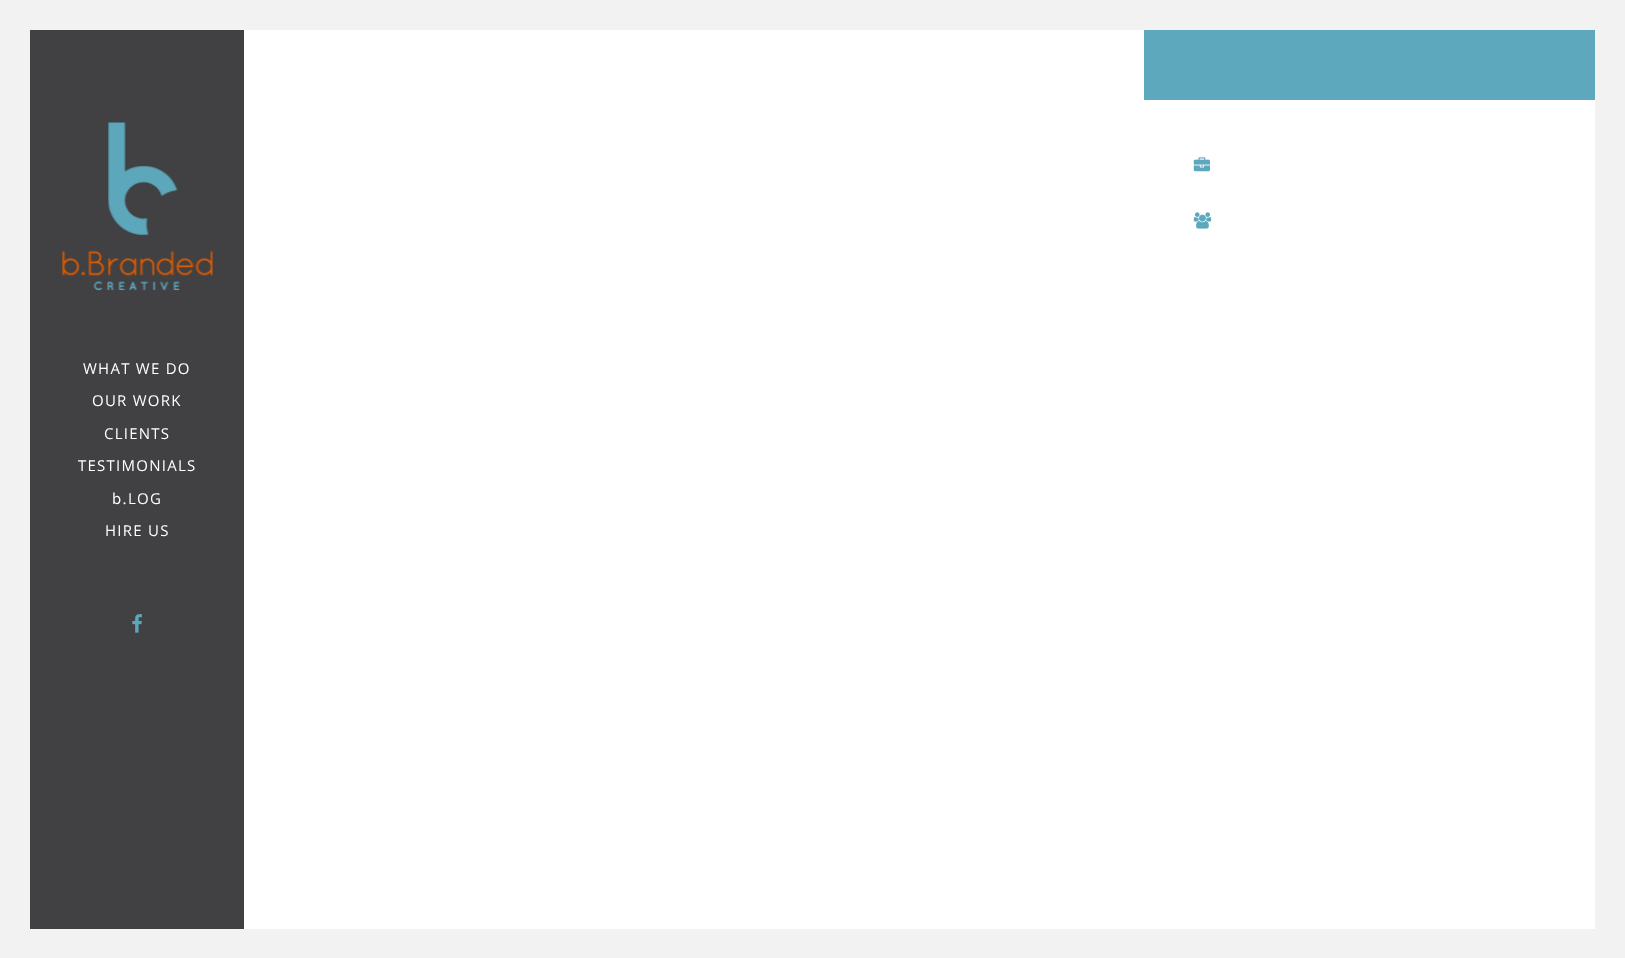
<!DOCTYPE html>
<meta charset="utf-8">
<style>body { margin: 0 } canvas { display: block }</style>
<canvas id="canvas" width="1625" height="958"></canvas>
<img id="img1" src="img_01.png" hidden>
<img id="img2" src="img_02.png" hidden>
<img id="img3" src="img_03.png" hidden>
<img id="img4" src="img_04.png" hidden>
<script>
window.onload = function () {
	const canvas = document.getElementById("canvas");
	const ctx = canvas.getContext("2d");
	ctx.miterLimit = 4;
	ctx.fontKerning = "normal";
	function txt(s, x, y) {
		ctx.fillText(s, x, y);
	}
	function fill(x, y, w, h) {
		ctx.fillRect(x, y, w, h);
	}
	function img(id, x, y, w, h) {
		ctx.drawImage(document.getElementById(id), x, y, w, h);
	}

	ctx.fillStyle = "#FFFFFF";
	fill(0, 0, 1625, 958);
	ctx.fillStyle = "#F2F2F2";
	fill(0, 0, 30, 958);
	fill(30, 0, 1595, 30);
	ctx.fillStyle = "#414042";
	fill(30, 30, 214, 899);
	img("img1", 62, 122, 151, 169);
	img("img2", 132, 614, 10, 19);
	ctx.fillStyle = "#5DA8BC";
	fill(1144, 30, 451, 70);
	img("img3", 1193, 157, 17, 15);
	img("img4", 1193, 212, 19, 17);
	ctx.fillStyle = "#F2F2F2";
	fill(1595, 30, 30, 899);
	fill(30, 929, 1595, 29);
	ctx.letterSpacing = "1.25px";
	ctx.font = "15px Open Sans";
	ctx.fillStyle = "#FFFFFF";
	txt("WHAT WE DO", 83, 374);
	txt("OUR WORK", 92, 406);
	txt("CLIENTS", 104, 439);
	txt("TESTIMONIALS", 78, 471);
	ctx.font = "15px Noto Sans";
	txt("b.", 112, 504);
	ctx.font = "15px Open Sans";
	txt("LOG", 128, 504);
	txt("HIRE US", 105, 536);
};
</script>
